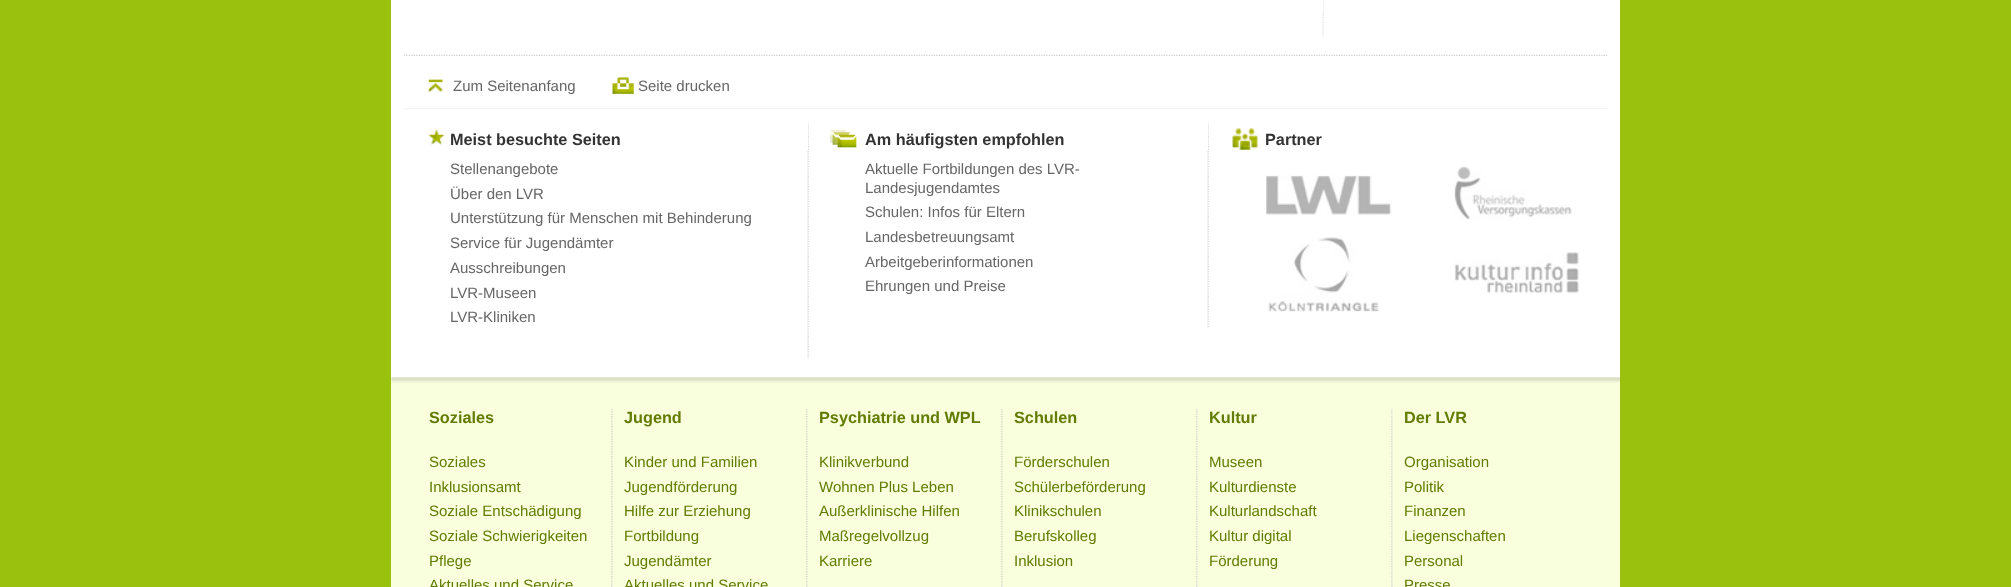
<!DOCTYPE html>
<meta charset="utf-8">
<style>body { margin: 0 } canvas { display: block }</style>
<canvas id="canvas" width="2011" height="587"></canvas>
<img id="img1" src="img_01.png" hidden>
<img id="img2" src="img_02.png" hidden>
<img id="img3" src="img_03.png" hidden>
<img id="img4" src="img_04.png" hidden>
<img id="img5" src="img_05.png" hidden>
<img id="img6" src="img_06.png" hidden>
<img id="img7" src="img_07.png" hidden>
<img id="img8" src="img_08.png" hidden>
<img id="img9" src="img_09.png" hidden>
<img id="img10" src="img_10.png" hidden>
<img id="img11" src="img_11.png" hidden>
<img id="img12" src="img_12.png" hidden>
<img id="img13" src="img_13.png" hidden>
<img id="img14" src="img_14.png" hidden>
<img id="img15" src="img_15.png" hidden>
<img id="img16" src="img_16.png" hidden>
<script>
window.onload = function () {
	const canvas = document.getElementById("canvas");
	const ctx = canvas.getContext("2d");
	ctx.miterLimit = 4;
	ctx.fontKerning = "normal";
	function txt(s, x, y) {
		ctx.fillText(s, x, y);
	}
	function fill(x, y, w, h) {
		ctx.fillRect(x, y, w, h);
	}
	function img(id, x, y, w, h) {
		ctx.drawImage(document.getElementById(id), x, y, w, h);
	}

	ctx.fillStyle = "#9AC10E";
	fill(0, 0, 2011, 587);
	ctx.fillStyle = "#FFFFFF";
	fill(391, 0, 1229, 378);
	img("img1", 1322, 0, 2, 36);
	fill(1322, 0, 1, 11);
	img("img2", 403, 54, 1205, 2);
	img("img3", 428, 79, 15, 13);
	img("img4", 612, 77, 22, 17);
	img("img5", 404, 108, 1204, 1);
	img("img6", 807, 123, 2, 236);
	fill(807, 124, 1, 26);
	img("img7", 428, 128, 17, 17);
	img("img8", 1207, 123, 2, 204);
	fill(1207, 124, 1, 26);
	img("img9", 830, 129, 28, 19);
	img("img10", 1232, 128, 26, 22);
	img("img11", 1266, 175, 126, 40);
	img("img12", 1454, 166, 118, 54);
	img("img13", 1268, 237, 111, 75);
	img("img14", 1454, 252, 125, 42);
	ctx.fillStyle = "#F9FFDD";
	fill(391, 378, 1229, 209);
	img("img15", 391, 377, 1229, 6);
	img("img16", 611, 408, 2, 179);
	img("img16", 806, 408, 2, 179);
	img("img16", 1001, 408, 2, 179);
	img("img16", 1196, 408, 2, 179);
	img("img16", 1391, 408, 2, 179);
	ctx.font = "15px Liberation Sans";
	ctx.fillStyle = "#666666";
	txt("Zum Seitenanfang", 453, 91);
	txt("Seite drucken", 638, 91);
	ctx.font = "bold 16.25px Liberation Sans";
	ctx.fillStyle = "#333333";
	txt("Meist besuchte Seiten", 450, 145);
	ctx.font = "15px Liberation Sans";
	ctx.fillStyle = "#666666";
	txt("Stellenangebote", 450, 174);
	txt("Über den LVR", 450, 199);
	txt("Unterstützung für Menschen mit Behinderung", 450, 223);
	txt("Service für Jugendämter", 450, 248);
	txt("Ausschreibungen", 450, 273);
	txt("LVR-Museen", 450, 298);
	txt("LVR-Kliniken", 450, 322);
	ctx.font = "bold 16.25px Liberation Sans";
	ctx.fillStyle = "#333333";
	txt("Am häufigsten empfohlen", 865, 145);
	ctx.font = "15px Liberation Sans";
	ctx.fillStyle = "#666666";
	txt("Aktuelle Fortbildungen des LVR-", 865, 174);
	txt("Landesjugendamtes", 865, 193);
	txt("Schulen: Infos für Eltern", 865, 217);
	txt("Landesbetreuungsamt", 865, 242);
	txt("Arbeitgeberinformationen", 865, 267);
	txt("Ehrungen und Preise", 865, 291);
	ctx.font = "bold 16.25px Liberation Sans";
	ctx.fillStyle = "#333333";
	txt("Partner", 1265, 145);
	ctx.fillStyle = "#617C00";
	txt("Soziales", 429, 423);
	ctx.font = "15px Liberation Sans";
	txt("Soziales", 429, 467);
	txt("Inklusionsamt", 429, 492);
	txt("Soziale Entschädigung", 429, 516);
	txt("Soziale Schwierigkeiten", 429, 541);
	txt("Pflege", 429, 566);
	txt("Aktuelles und Service", 429, 590);
	ctx.font = "bold 16.25px Liberation Sans";
	txt("Jugend", 624, 423);
	ctx.font = "15px Liberation Sans";
	txt("Kinder und Familien", 624, 467);
	txt("Jugendförderung", 624, 492);
	txt("Hilfe zur Erziehung", 624, 516);
	txt("Fortbildung", 624, 541);
	txt("Jugendämter", 624, 566);
	txt("Aktuelles und Service", 624, 590);
	ctx.font = "bold 16.25px Liberation Sans";
	txt("Psychiatrie und WPL", 819, 423);
	ctx.font = "15px Liberation Sans";
	txt("Klinikverbund", 819, 467);
	txt("Wohnen Plus Leben", 819, 492);
	txt("Außerklinische Hilfen", 819, 516);
	txt("Maßregelvollzug", 819, 541);
	txt("Karriere", 819, 566);
	ctx.font = "bold 16.25px Liberation Sans";
	txt("Schulen", 1014, 423);
	ctx.font = "15px Liberation Sans";
	txt("Förderschulen", 1014, 467);
	txt("Schülerbeförderung", 1014, 492);
	txt("Klinikschulen", 1014, 516);
	txt("Berufskolleg", 1014, 541);
	txt("Inklusion", 1014, 566);
	ctx.font = "bold 16.25px Liberation Sans";
	txt("Kultur", 1209, 423);
	ctx.font = "15px Liberation Sans";
	txt("Museen", 1209, 467);
	txt("Kulturdienste", 1209, 492);
	txt("Kulturlandschaft", 1209, 516);
	txt("Kultur digital", 1209, 541);
	txt("Förderung", 1209, 566);
	ctx.font = "bold 16.25px Liberation Sans";
	txt("Der LVR", 1404, 423);
	ctx.font = "15px Liberation Sans";
	txt("Organisation", 1404, 467);
	txt("Politik", 1404, 492);
	txt("Finanzen", 1404, 516);
	txt("Liegenschaften", 1404, 541);
	txt("Personal", 1404, 566);
	txt("Presse", 1404, 590);
};
</script>
